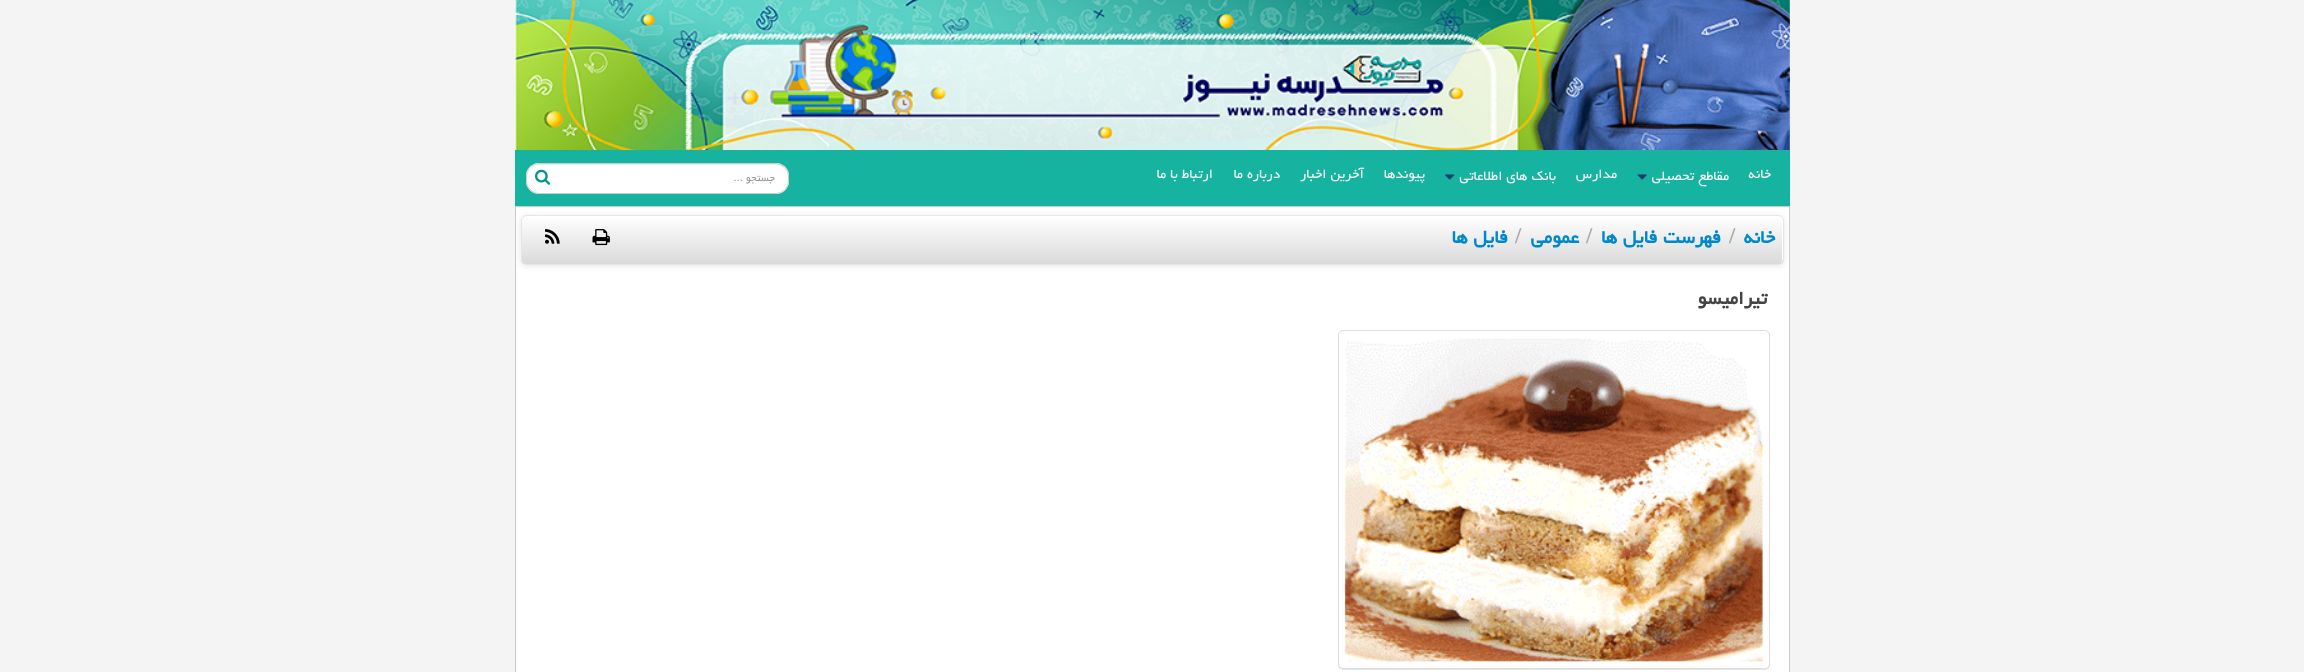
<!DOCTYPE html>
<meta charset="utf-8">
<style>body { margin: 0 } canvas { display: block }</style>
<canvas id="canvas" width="2304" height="672"></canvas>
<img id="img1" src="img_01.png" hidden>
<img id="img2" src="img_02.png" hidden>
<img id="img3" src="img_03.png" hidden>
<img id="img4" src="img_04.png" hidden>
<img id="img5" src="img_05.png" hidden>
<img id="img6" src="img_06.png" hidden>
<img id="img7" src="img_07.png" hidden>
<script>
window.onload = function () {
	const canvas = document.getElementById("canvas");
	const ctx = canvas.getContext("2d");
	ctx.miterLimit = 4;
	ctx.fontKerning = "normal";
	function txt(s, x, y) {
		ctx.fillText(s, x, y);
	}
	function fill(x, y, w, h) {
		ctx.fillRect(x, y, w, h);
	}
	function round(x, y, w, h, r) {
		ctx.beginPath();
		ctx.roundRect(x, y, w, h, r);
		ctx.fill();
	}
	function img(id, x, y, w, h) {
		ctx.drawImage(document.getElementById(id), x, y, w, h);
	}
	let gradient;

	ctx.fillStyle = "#F4F4F4";
	fill(0, 0, 2304, 672);
	img("img1", 515, 0, 1275, 150);
	ctx.fillStyle = "#17B3A1";
	fill(515, 150, 1275, 56);
	img("img2", 1637, 174, 10, 6);
	img("img3", 1445, 174, 10, 6);
	ctx.fillStyle = "#FFFFFF";
	round(526, 163, 263, 31, 13);
	ctx.fillStyle = "#ECECEC";
	ctx.beginPath();
	ctx.moveTo(539, 165);
	ctx.lineTo(776, 165);
	ctx.bezierCurveTo(782, 165, 788, 170, 788, 176);
	ctx.lineTo(788, 175);
	ctx.bezierCurveTo(788, 169, 783, 164, 777, 164);
	ctx.lineTo(539, 164);
	ctx.bezierCurveTo(533, 164, 528, 169, 528, 175);
	ctx.lineTo(528, 176);
	ctx.bezierCurveTo(528, 170, 533, 165, 539, 165);
	ctx.closePath();
	ctx.fill();
	ctx.beginPath();
	ctx.roundRect(526.5, 163.5, 262, 30, 12.5);
	ctx.strokeStyle = "#CCCCCC";
	ctx.stroke();
	img("img4", 535, 169, 16, 16);
	ctx.strokeRect(515.5, 206.5, 1274, 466);
	ctx.fillStyle = "#FFFFFF";
	fill(516, 208, 1273, 464);
	ctx.fillStyle = "rgba(0, 0, 0, 0.1)";
	ctx.filter = "blur(3px)";
	ctx.beginPath();
	ctx.roundRect(521, 216, 1263, 50, 6);
	ctx.fill();
	ctx.filter = "none";
	ctx.save();
	ctx.beginPath();
	ctx.roundRect(521, 215, 1263, 50, 6);
	ctx.clip();
	gradient = ctx.createLinearGradient(1153, 216, 1153, 264);
	gradient.addColorStop(0, "#FFFFFF");
	gradient.addColorStop(1, "#DADADA");
	ctx.fillStyle = gradient;
	fill(521, 216, 1263, 48);
	ctx.restore();
	ctx.fillStyle = "#FFFFFF";
	ctx.beginPath();
	ctx.moveTo(528, 218);
	ctx.lineTo(1778, 218);
	ctx.bezierCurveTo(1780, 218, 1782, 220, 1782, 222);
	ctx.lineTo(1782, 260);
	ctx.lineTo(1781, 263);
	ctx.bezierCurveTo(1782, 262, 1783, 260, 1783, 259);
	ctx.lineTo(1783, 221);
	ctx.bezierCurveTo(1783, 218, 1781, 216, 1778, 216);
	ctx.lineTo(528, 216);
	ctx.bezierCurveTo(526, 216, 524, 218, 523, 220);
	ctx.bezierCurveTo(524, 219, 526, 218, 528, 218);
	ctx.closePath();
	ctx.fill();
	ctx.beginPath();
	ctx.roundRect(521.5, 215.5, 1262, 49, 5.5);
	ctx.strokeStyle = "#E5E5E5";
	ctx.stroke();
	img("img5", 592, 229, 18, 17);
	img("img6", 545, 229, 15, 15);
	ctx.fillStyle = "rgba(0, 0, 0, 0.1)";
	ctx.filter = "blur(0.5px)";
	ctx.beginPath();
	ctx.roundRect(1338, 331, 432, 339, 5);
	ctx.fill();
	ctx.filter = "none";
	ctx.fillStyle = "#FFFFFF";
	ctx.beginPath();
	ctx.roundRect(1338.5, 330.5, 431, 338, 4.5);
	ctx.fill();
	ctx.strokeStyle = "#DDDDDD";
	ctx.stroke();
	img("img7", 1344, 338, 419, 324);
	ctx.direction = "rtl";
	ctx.font = "16.25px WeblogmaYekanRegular";
	ctx.fillStyle = "#F4F4F4";
	txt("خانه", 1771, 178);
	txt("مقاطع تحصیلی", 1729, 180);
	txt("مدارس", 1617, 178);
	txt("بانک های اطلاعاتی", 1556, 180);
	txt("پیوندها", 1425, 178);
	txt("آخرین اخبار", 1364, 178);
	txt("درباره ما", 1280, 178);
	txt("ارتباط با ما", 1213, 178);
	ctx.font = "12.5px WeblogmaYekanRegular";
	ctx.fillStyle = "#999999";
	txt("جستجو ...", 775, 181);
	ctx.font = "bold 22.5px WeblogmaYekanRegular";
	ctx.fillStyle = "#0088CC";
	txt("خانه", 1775, 243);
	ctx.direction = "ltr";
	ctx.font = "bold 22.5px Liberation Serif";
	ctx.fillStyle = "#AAAAAA";
	txt("/", 1729, 243);
	ctx.direction = "rtl";
	ctx.font = "bold 22.5px WeblogmaYekanRegular";
	ctx.fillStyle = "#0088CC";
	txt("فهرست فایل ها", 1721, 243);
	ctx.direction = "ltr";
	ctx.font = "bold 22.5px Liberation Serif";
	ctx.fillStyle = "#AAAAAA";
	txt("/", 1586, 243);
	ctx.direction = "rtl";
	ctx.font = "bold 22.5px WeblogmaYekanRegular";
	ctx.fillStyle = "#0088CC";
	txt("عمومی", 1579, 243);
	ctx.direction = "ltr";
	ctx.font = "bold 22.5px Liberation Serif";
	ctx.fillStyle = "#AAAAAA";
	txt("/", 1515, 243);
	ctx.direction = "rtl";
	ctx.font = "bold 22.5px WeblogmaYekanRegular";
	ctx.fillStyle = "#0088CC";
	txt("فایل ها", 1508, 243);
	ctx.fillStyle = "#444444";
	txt("تیرامیسو", 1767, 304);
};
</script>
